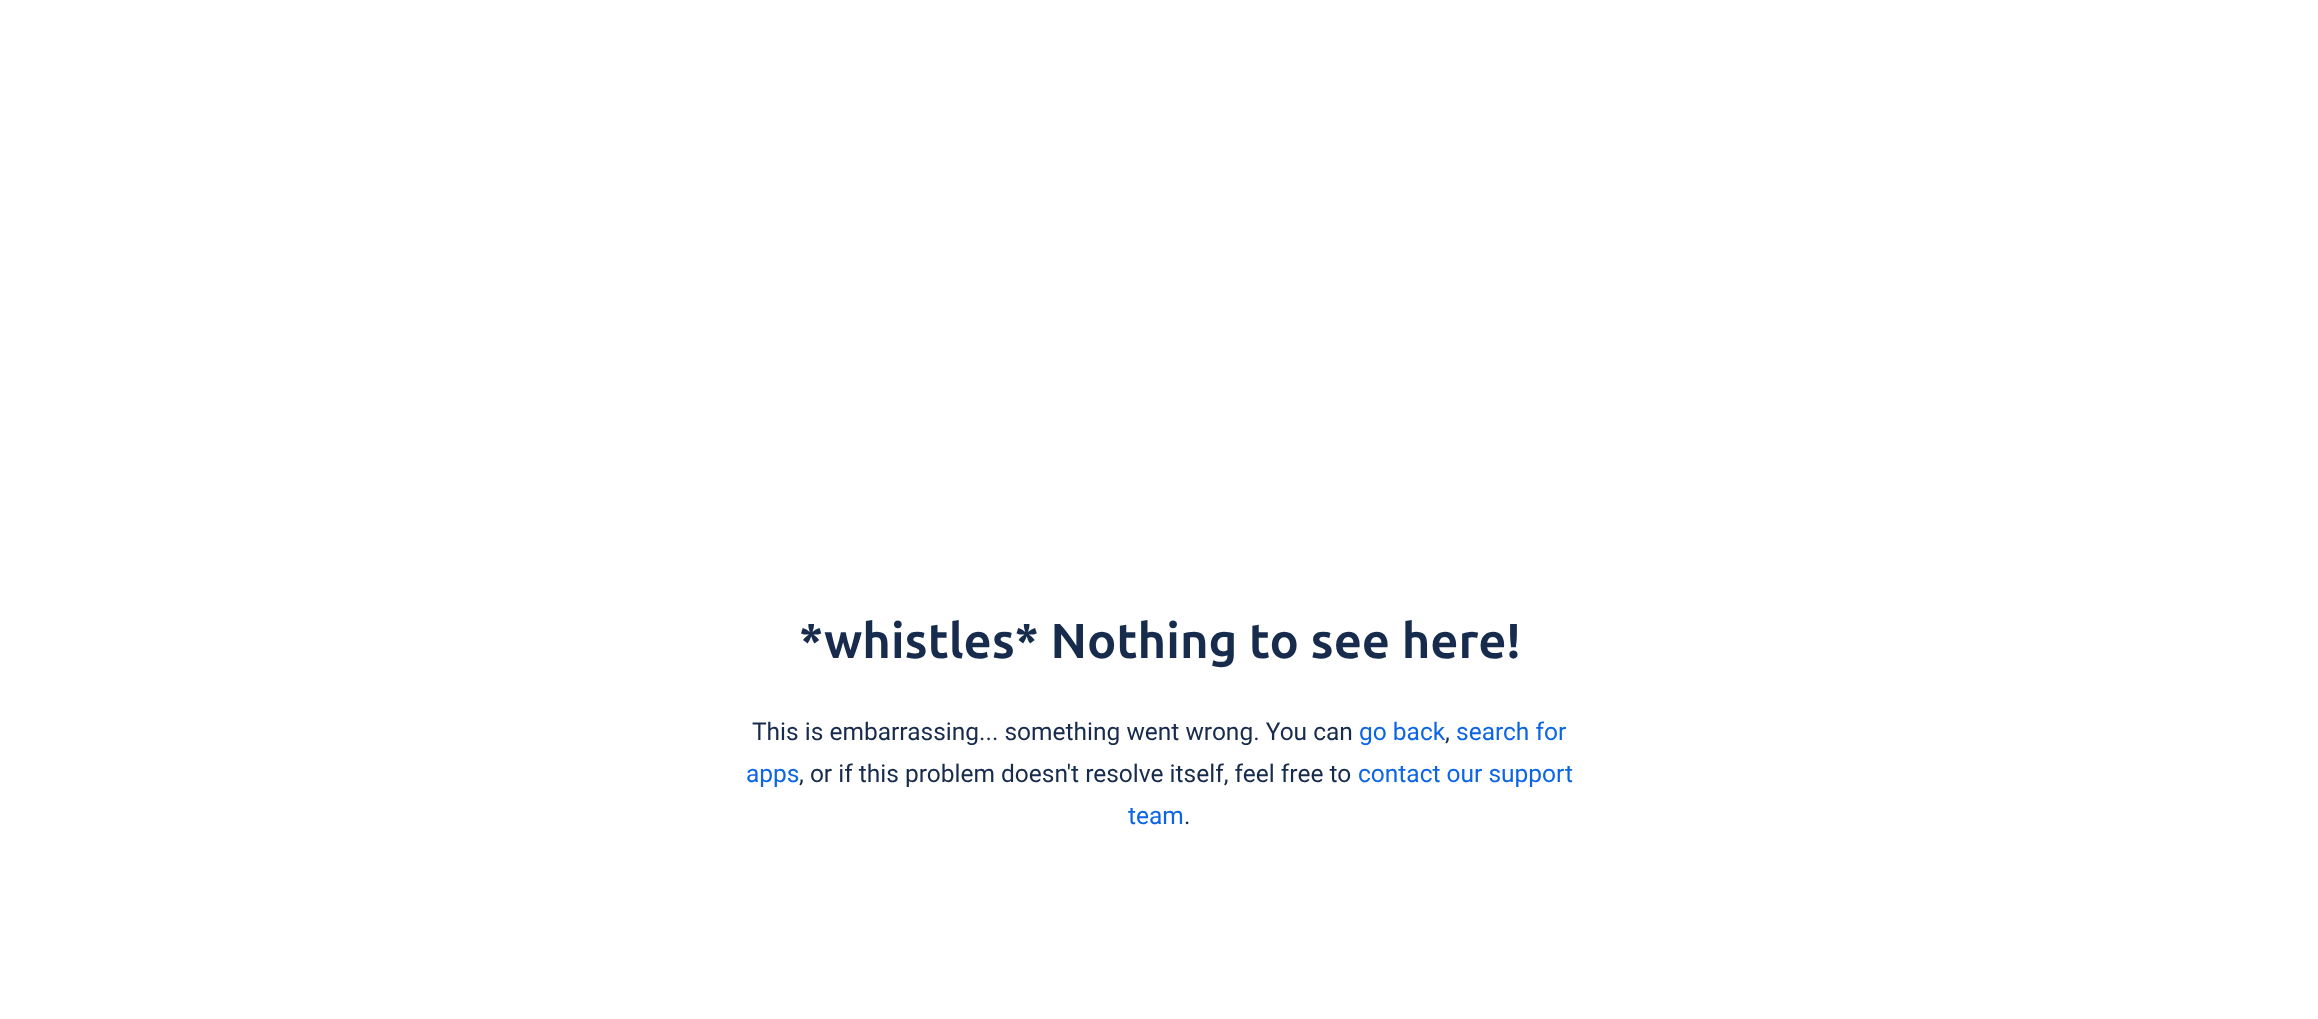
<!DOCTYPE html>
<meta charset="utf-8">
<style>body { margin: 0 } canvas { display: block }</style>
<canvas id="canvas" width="2318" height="1019"></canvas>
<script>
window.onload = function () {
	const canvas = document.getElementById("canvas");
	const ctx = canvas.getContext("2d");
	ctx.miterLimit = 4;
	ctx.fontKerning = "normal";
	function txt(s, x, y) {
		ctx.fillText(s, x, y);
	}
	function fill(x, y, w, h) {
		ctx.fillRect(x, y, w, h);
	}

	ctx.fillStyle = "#FFFFFF";
	fill(0, 0, 2318, 1019);
	ctx.font = "bold 49px Ubuntu";
	ctx.fillStyle = "#172B4D";
	txt("*whistles* Nothing to see here!", 799, 658);
	ctx.font = "24.5px Roboto";
	txt("This is embarrassing... something went wrong. You can", 752, 740);
	ctx.fillStyle = "#0C66E4";
	txt("go back", 1359, 740);
	ctx.fillStyle = "#172B4D";
	txt(",", 1445, 740);
	ctx.fillStyle = "#0C66E4";
	txt("search for", 1456, 740);
	txt("apps", 746, 782);
	ctx.fillStyle = "#172B4D";
	txt(", or if this problem doesn't resolve itself, feel free to", 799, 782);
	ctx.fillStyle = "#0C66E4";
	txt("contact our support", 1358, 782);
	txt("team", 1128, 824);
	ctx.fillStyle = "#172B4D";
	txt(".", 1184, 824);
};
</script>
